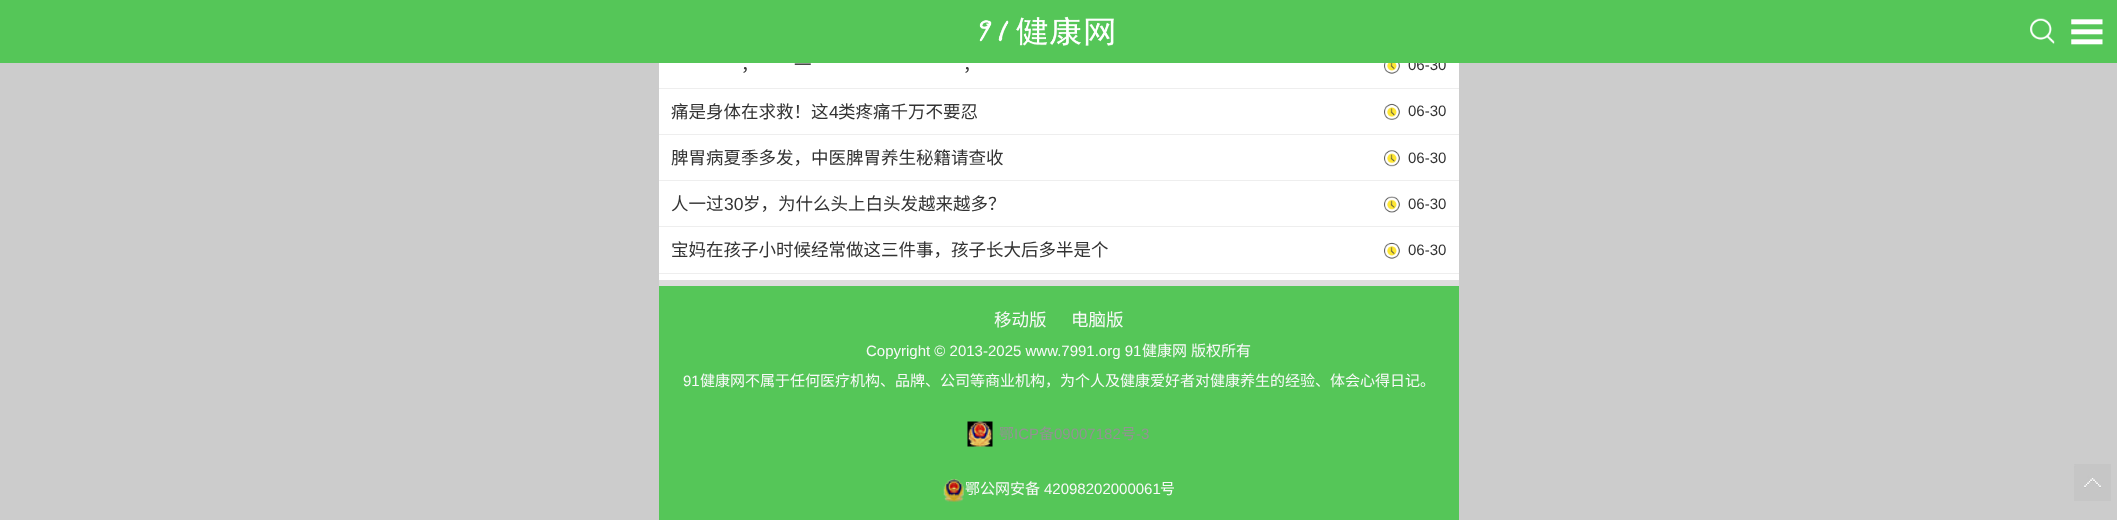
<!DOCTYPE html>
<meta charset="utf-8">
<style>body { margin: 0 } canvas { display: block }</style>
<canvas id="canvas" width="2117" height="520"></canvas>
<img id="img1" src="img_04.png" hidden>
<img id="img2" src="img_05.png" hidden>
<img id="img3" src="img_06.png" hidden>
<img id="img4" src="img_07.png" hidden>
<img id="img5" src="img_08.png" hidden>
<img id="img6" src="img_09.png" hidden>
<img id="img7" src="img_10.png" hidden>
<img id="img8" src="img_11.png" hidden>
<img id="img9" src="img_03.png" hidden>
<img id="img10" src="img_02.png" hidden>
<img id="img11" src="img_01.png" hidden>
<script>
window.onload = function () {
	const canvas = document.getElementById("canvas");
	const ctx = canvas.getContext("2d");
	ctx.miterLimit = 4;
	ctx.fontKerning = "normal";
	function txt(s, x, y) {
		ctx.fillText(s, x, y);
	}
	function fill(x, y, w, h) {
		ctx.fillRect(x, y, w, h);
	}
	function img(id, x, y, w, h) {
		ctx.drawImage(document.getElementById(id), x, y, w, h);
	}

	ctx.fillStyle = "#CCCCCC";
	fill(0, 0, 2117, 520);
	ctx.fillStyle = "#FFFFFF";
	fill(659, 63, 800, 217);
	ctx.fillStyle = "#EEEEEE";
	fill(659, 88, 800, 1);
	img("img1", 1384, 63, 16, 11);
	fill(659, 134, 800, 1);
	img("img2", 1384, 103, 16, 17);
	fill(659, 180, 800, 1);
	img("img3", 1384, 150, 16, 17);
	fill(659, 226, 800, 1);
	img("img4", 1384, 196, 16, 17);
	fill(659, 273, 800, 1);
	img("img5", 1384, 242, 16, 17);
	ctx.fillStyle = "#55C658";
	fill(659, 286, 800, 234);
	ctx.fillStyle = "#DDDDDD";
	fill(659, 280, 800, 6);
	img("img6", 967, 421, 26, 26);
	img("img7", 943, 479, 21, 23);
	img("img8", 2074, 464, 37, 37);
	ctx.font = "17.5px Noto Sans CJK SC";
	ctx.fillStyle = "#333333";
	txt("一", 794, 71);
	ctx.font = "15px Liberation Sans";
	txt("06-30", 1408, 70);
	ctx.fillStyle = "#55C658";
	fill(0, 0, 2117, 63);
	img("img9", 2071, 19, 32, 26);
	img("img10", 2030, 18, 25, 26);
	img("img11", 979, 16, 135, 30);
	ctx.font = "17.5px Noto Sans CJK SC";
	ctx.fillStyle = "#333333";
	txt("，", 741, 71);
	txt("，", 963, 71);
	txt("痛是身体在求救！这", 671, 118);
	ctx.font = "17.5px Liberation Sans";
	txt("4", 829, 118);
	ctx.font = "17.5px Noto Sans CJK SC";
	txt("类疼痛千万不要忍", 838, 118);
	ctx.font = "15px Liberation Sans";
	txt("06-30", 1408, 116);
	ctx.font = "17.5px Noto Sans CJK SC";
	txt("脾胃病夏季多发，中医脾胃养生秘籍请查收", 671, 164);
	ctx.font = "15px Liberation Sans";
	txt("06-30", 1408, 163);
	ctx.font = "17.5px Noto Sans CJK SC";
	txt("人一过", 671, 210);
	ctx.font = "17.5px Liberation Sans";
	txt("30", 724, 210);
	ctx.font = "17.5px Noto Sans CJK SC";
	txt("岁，为什么头上白头发越来越多？", 743, 210);
	ctx.font = "15px Liberation Sans";
	txt("06-30", 1408, 209);
	ctx.font = "17.5px Noto Sans CJK SC";
	txt("宝妈在孩子小时候经常做这三件事，孩子长大后多半是个", 671, 256);
	ctx.font = "15px Liberation Sans";
	txt("06-30", 1408, 255);
	ctx.font = "17.5px Noto Sans CJK SC";
	ctx.fillStyle = "#F9F9F9";
	txt("移动版", 994, 326);
	txt("电脑版", 1071, 326);
	ctx.font = "15px Liberation Sans";
	txt("Copyright © 2013-2025 www.7991.org 91", 866, 356);
	ctx.font = "15px Noto Sans CJK SC";
	txt("健康网", 1142, 356);
	txt("版权所有", 1191, 356);
	ctx.font = "15px Liberation Sans";
	txt("91", 683, 386);
	ctx.font = "15px Noto Sans CJK SC";
	txt("健康网不属于任何医疗机构、品牌、公司等商业机构，为个人及健康爱好者对健康养生的经验、体会心得日记。", 700, 386);
	ctx.fillStyle = "#939393";
	txt("鄂", 999, 439);
	ctx.font = "15px Liberation Sans";
	txt("ICP", 1014, 439);
	ctx.font = "15px Noto Sans CJK SC";
	txt("备", 1039, 439);
	ctx.font = "15px Liberation Sans";
	txt("09007182", 1054, 439);
	ctx.font = "15px Noto Sans CJK SC";
	txt("号", 1121, 439);
	ctx.font = "15px Liberation Sans";
	txt("-3", 1136, 439);
	ctx.font = "15px Noto Sans CJK SC";
	ctx.fillStyle = "#F9F9F9";
	txt("鄂公网安备", 965, 494);
	ctx.font = "15px Liberation Sans";
	txt("42098202000061", 1044, 494);
	ctx.font = "15px Noto Sans CJK SC";
	txt("号", 1160, 494);
};
</script>
